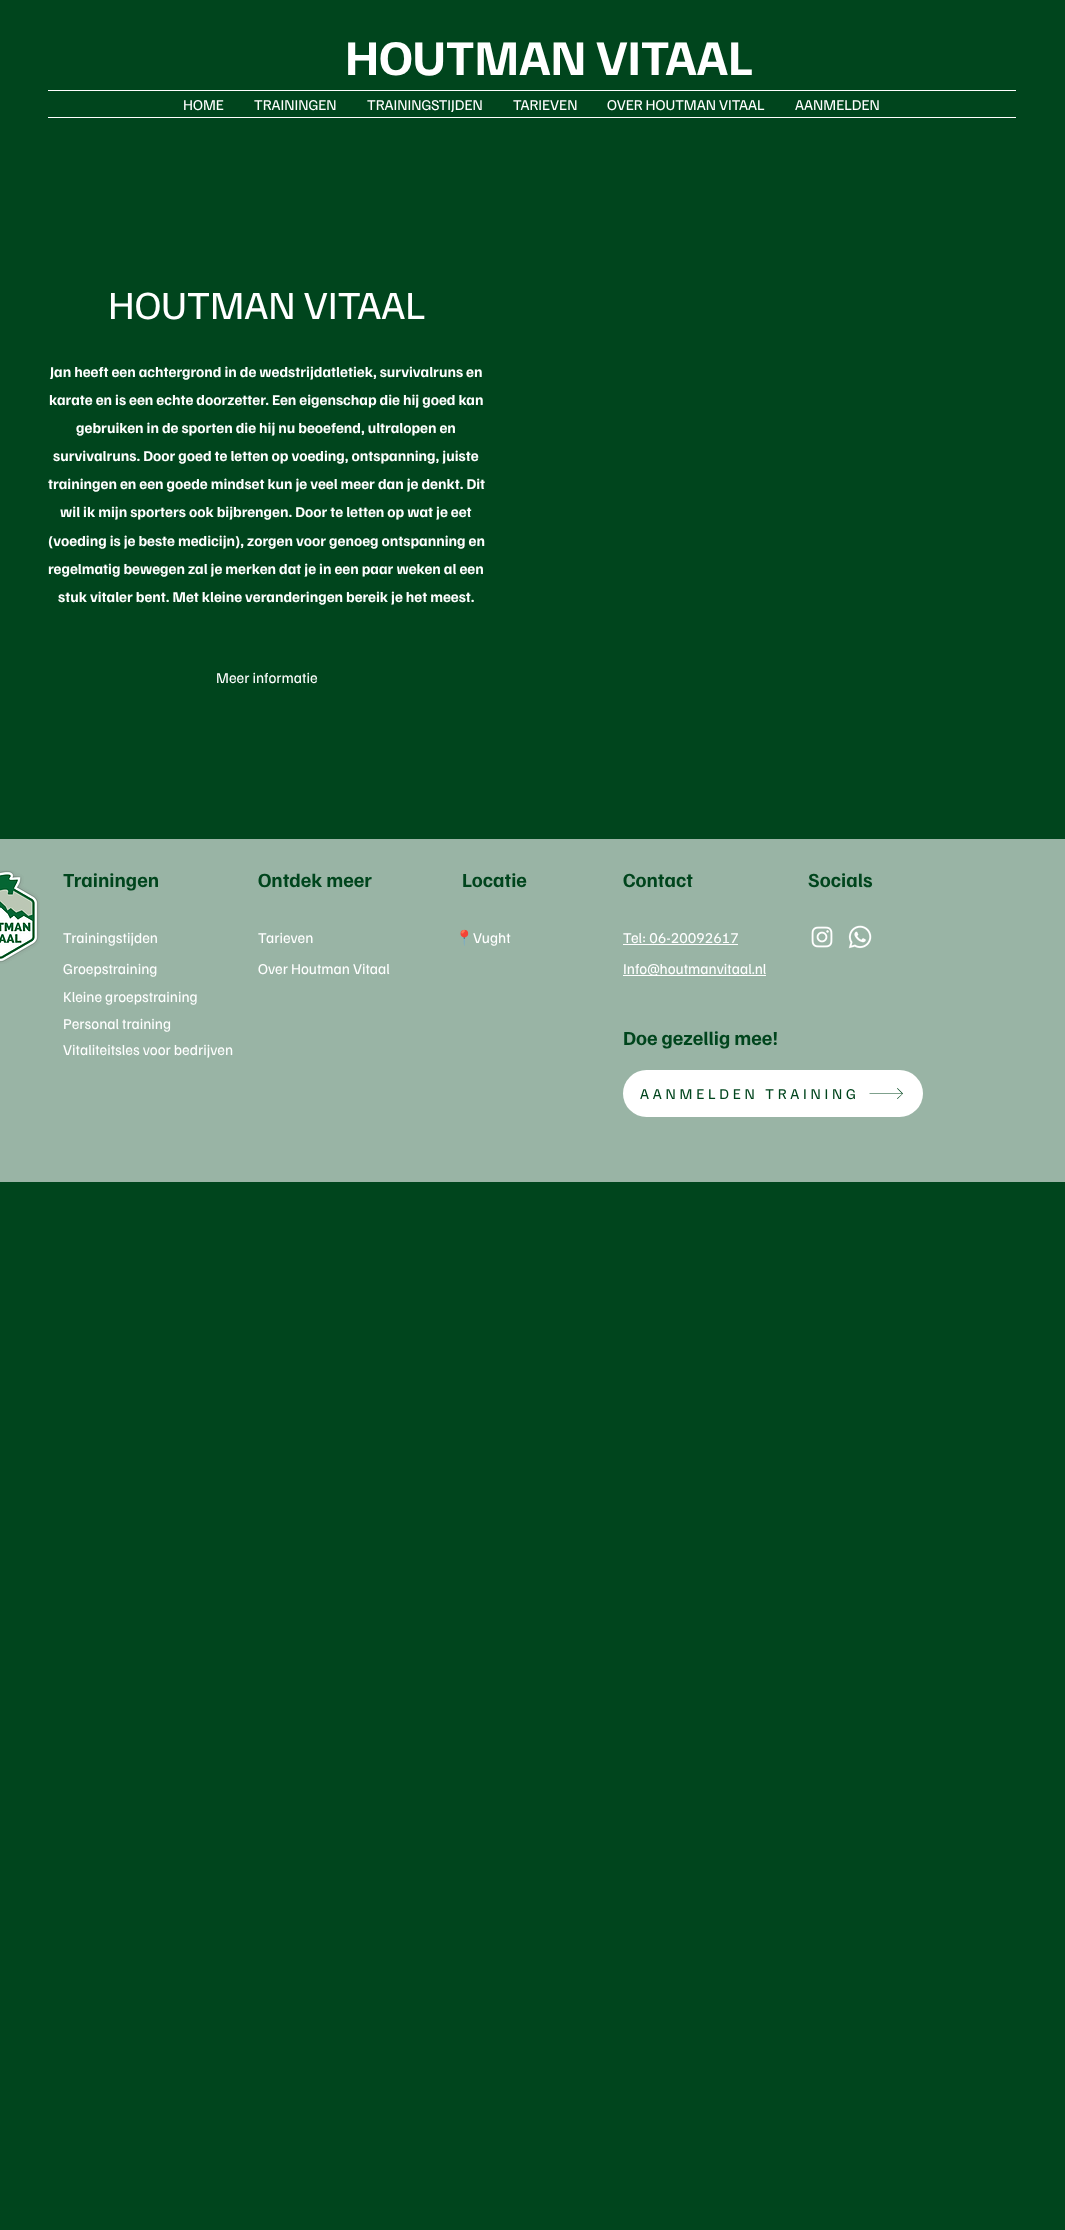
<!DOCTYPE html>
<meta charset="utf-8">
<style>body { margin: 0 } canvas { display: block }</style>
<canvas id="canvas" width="1065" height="2230"></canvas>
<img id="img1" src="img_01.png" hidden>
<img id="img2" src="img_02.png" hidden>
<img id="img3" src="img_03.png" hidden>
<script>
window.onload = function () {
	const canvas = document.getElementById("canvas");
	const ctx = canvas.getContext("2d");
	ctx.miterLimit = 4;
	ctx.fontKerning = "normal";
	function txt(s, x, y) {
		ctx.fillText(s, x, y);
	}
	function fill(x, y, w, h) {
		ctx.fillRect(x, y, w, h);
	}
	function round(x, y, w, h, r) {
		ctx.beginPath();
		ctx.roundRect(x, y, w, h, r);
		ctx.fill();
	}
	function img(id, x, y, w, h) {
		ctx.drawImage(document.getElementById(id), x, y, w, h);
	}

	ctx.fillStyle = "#00451D";
	fill(0, 0, 1065, 2230);
	ctx.fillStyle = "#FFFFFF";
	fill(48, 90, 968, 1);
	fill(48, 117, 968, 1);
	ctx.fillStyle = "#99B4A5";
	fill(0, 839, 1065, 343);
	img("img1", 0, 870, 40, 94);
	ctx.fillStyle = "#FFFFFF";
	fill(623, 944, 115, 1);
	img("img2", 811, 926, 22, 22);
	img("img3", 848, 925, 24, 24);
	fill(623, 975, 143, 1);
	round(623, 1070, 300, 47, 23.5);
	ctx.fillStyle = "#00451D";
	ctx.beginPath();
	ctx.moveTo(897.5, 1088);
	ctx.lineTo(897, 1088.5);
	ctx.lineTo(902, 1093.5);
	ctx.lineTo(869.5, 1093.5);
	ctx.lineTo(869.5, 1094);
	ctx.lineTo(902, 1094);
	ctx.lineTo(897, 1098.5);
	ctx.lineTo(897.5, 1099);
	ctx.lineTo(903, 1093.5);
	ctx.closePath();
	ctx.fill();
	ctx.font = "bold 50px Familjen Grotesk";
	ctx.fillStyle = "#FFFFFF";
	txt("HOUTMAN VITAAL", 345, 75);
	ctx.font = "15px Familjen Grotesk";
	txt("HOME", 183, 110);
	txt("TRAININGEN", 254, 110);
	txt("TRAININGSTIJDEN", 367, 110);
	txt("TARIEVEN", 513, 110);
	txt("OVER HOUTMAN VITAAL", 607, 110);
	txt("AANMELDEN", 795, 110);
	ctx.font = "40px Familjen Grotesk";
	txt("HOUTMAN VITAAL", 108, 319);
	ctx.font = "bold 15px Familjen Grotesk";
	txt("Jan heeft een achtergrond in de wedstrijdatletiek, survivalruns en", 50, 377);
	txt("karate en is een echte doorzetter. Een eigenschap die hij goed kan", 49, 405);
	txt("gebruiken in de sporten die hij nu beoefend, ultralopen en", 76, 433);
	txt("survivalruns. Door goed te letten op voeding, ontspanning, juiste", 53, 461);
	txt("trainingen en een goede mindset kun je veel meer dan je denkt. Dit", 48, 489);
	txt("wil ik mijn sporters ook bijbrengen. Door te letten op wat je eet", 60, 517);
	txt("(voeding is je beste medicijn), zorgen voor genoeg ontspanning en", 48, 546);
	txt("regelmatig bewegen zal je merken dat je in een paar weken al een", 48, 574);
	txt("stuk vitaler bent. Met kleine veranderingen bereik je het meest.", 58, 602);
	ctx.font = "15px Familjen Grotesk";
	txt("Meer informatie", 216, 683);
	ctx.font = "bold 20px Familjen Grotesk";
	ctx.fillStyle = "#00451D";
	txt("Trainingen", 63, 887);
	txt("Ontdek meer", 258, 887);
	txt("Locatie", 462, 887);
	txt("Contact", 623, 887);
	txt("Socials", 808, 887);
	ctx.font = "15px Familjen Grotesk";
	ctx.fillStyle = "#FFFFFF";
	txt("Trainingstijden", 63, 943);
	txt("Tarieven", 258, 943);
	ctx.font = "15px Noto Color Emoji";
	txt("📍", 455, 943);
	ctx.font = "15px Familjen Grotesk";
	txt("Vught", 473, 943);
	txt("Tel: 06-20092617", 623, 943);
	txt("Groepstraining", 63, 974);
	txt("Over Houtman Vitaal", 258, 974);
	txt("Info@houtmanvitaal.nl", 623, 974);
	txt("Kleine groepstraining", 63, 1002);
	txt("Personal training", 63, 1029);
	ctx.font = "bold 20px Familjen Grotesk";
	ctx.fillStyle = "#00451D";
	txt("Doe gezellig mee!", 623, 1045);
	ctx.font = "15px Familjen Grotesk";
	ctx.fillStyle = "#FFFFFF";
	txt("Vitaliteitsles voor bedrijven", 63, 1055);
	ctx.letterSpacing = "3.75px";
	ctx.fillStyle = "#00451D";
	txt("AANMELDEN TRAINING", 640, 1099);
};
</script>
